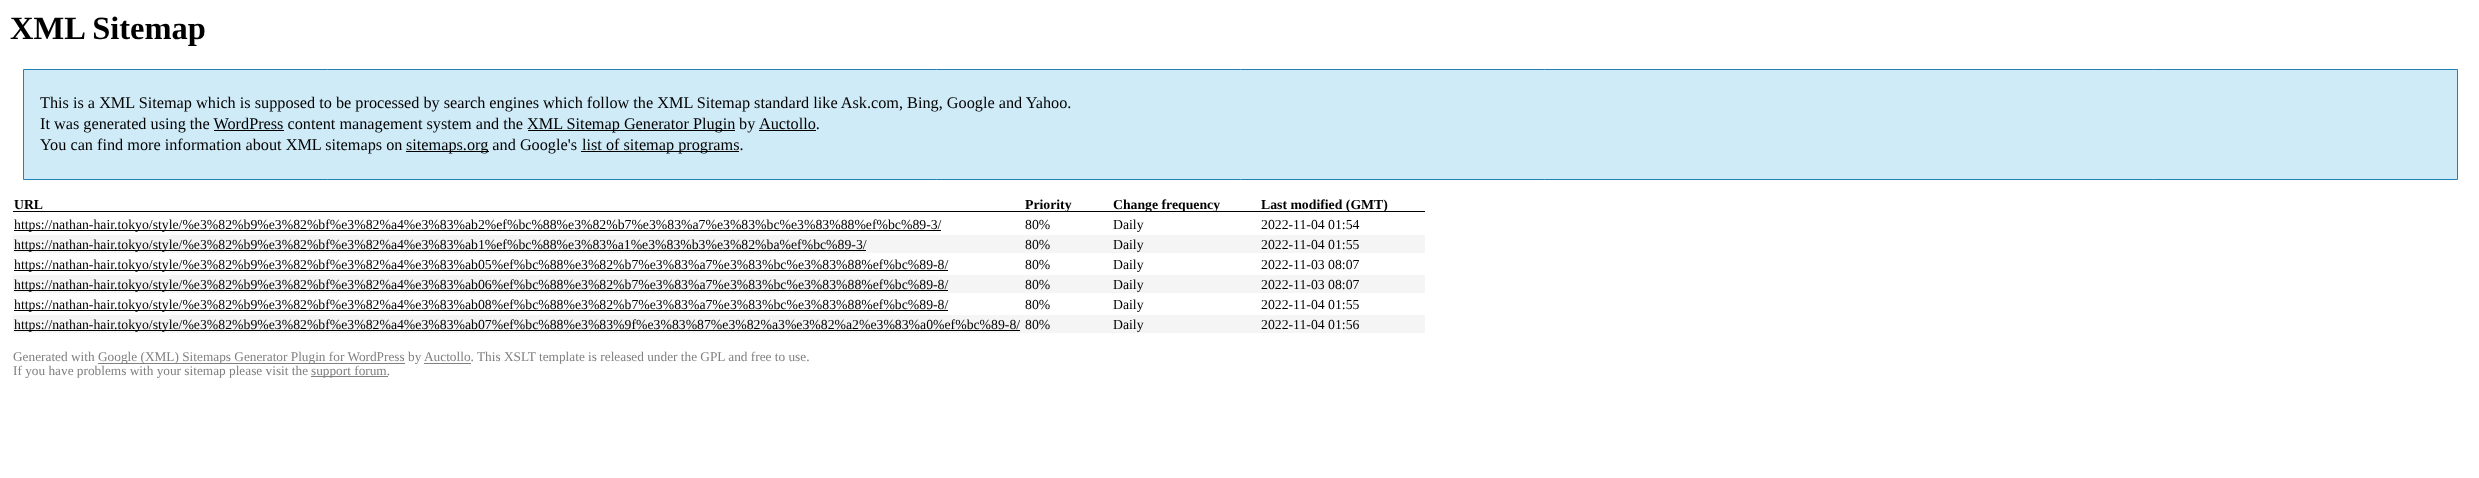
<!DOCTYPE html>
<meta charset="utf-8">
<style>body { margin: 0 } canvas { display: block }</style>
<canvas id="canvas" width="2479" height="478"></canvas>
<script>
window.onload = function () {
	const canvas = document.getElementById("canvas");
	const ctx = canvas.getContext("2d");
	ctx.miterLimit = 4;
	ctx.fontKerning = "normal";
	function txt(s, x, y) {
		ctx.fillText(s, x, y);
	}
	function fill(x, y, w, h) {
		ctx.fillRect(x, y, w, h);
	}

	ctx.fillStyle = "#FFFFFF";
	fill(0, 0, 2479, 478);
	ctx.fillStyle = "#CFEBF7";
	ctx.beginPath();
	ctx.rect(23.5, 69.5, 2434, 110);
	ctx.fill();
	ctx.strokeStyle = "#2580B2";
	ctx.stroke();
	ctx.fillStyle = "#000000";
	fill(528, 130, 207, 1);
	fill(759, 130, 57, 1);
	fill(214, 130, 70, 1);
	fill(406, 151, 83, 1);
	fill(581, 151, 158, 1);
	fill(13, 211, 1412, 1);
	fill(14, 230, 927, 1);
	ctx.fillStyle = "#F5F5F5";
	fill(13, 235, 1412, 18);
	ctx.fillStyle = "#000000";
	fill(14, 250, 852, 1);
	fill(14, 270, 934, 1);
	ctx.fillStyle = "#F5F5F5";
	fill(13, 275, 1412, 18);
	ctx.fillStyle = "#000000";
	fill(14, 290, 934, 1);
	fill(14, 310, 934, 1);
	ctx.fillStyle = "#F5F5F5";
	fill(13, 315, 1412, 18);
	ctx.fillStyle = "#000000";
	fill(14, 330, 1006, 1);
	ctx.fillStyle = "#808080";
	fill(98, 363, 307, 1);
	fill(424, 363, 47, 1);
	fill(311, 376, 77, 1);
	ctx.font = "bold 32.5px Liberation Serif";
	ctx.fillStyle = "#000000";
	txt("XML Sitemap", 10, 39);
	ctx.font = "16.25px Liberation Serif";
	txt("This is a XML Sitemap which is supposed to be processed by search engines which follow the XML Sitemap standard like Ask.com, Bing, Google and Yahoo.", 40, 108);
	txt("It was generated using the WordPress content management system and the", 40, 129);
	txt("XML Sitemap Generator Plugin", 527, 129);
	txt("by", 739, 129);
	txt("Auctollo.", 759, 129);
	txt("You can find more information about XML sitemaps on", 40, 150);
	txt("sitemaps.org and Google's", 406, 150);
	txt("list of sitemap programs.", 582, 150);
	ctx.font = "bold 13.75px Liberation Serif";
	txt("URL", 14, 209);
	txt("Priority", 1025, 209);
	txt("Change frequency", 1113, 209);
	txt("Last modified (GMT)", 1261, 209);
	ctx.font = "13.75px Liberation Serif";
	txt("https://nathan-hair.tokyo/style/%e3%82%b9%e3%82%bf%e3%82%a4%e3%83%ab2%ef%bc%88%e3%82%b7%e3%83%a7%e3%83%bc%e3%83%88%ef%bc%89-3/", 14, 229);
	txt("80%", 1025, 229);
	txt("Daily", 1113, 229);
	txt("2022-11-04 01:54", 1261, 229);
	txt("https://nathan-hair.tokyo/style/%e3%82%b9%e3%82%bf%e3%82%a4%e3%83%ab1%ef%bc%88%e3%83%a1%e3%83%b3%e3%82%ba%ef%bc%89-3/", 14, 249);
	txt("80%", 1025, 249);
	txt("Daily", 1113, 249);
	txt("2022-11-04 01:55", 1261, 249);
	txt("https://nathan-hair.tokyo/style/%e3%82%b9%e3%82%bf%e3%82%a4%e3%83%ab05%ef%bc%88%e3%82%b7%e3%83%a7%e3%83%bc%e3%83%88%ef%bc%89-8/", 14, 269);
	txt("80%", 1025, 269);
	txt("Daily", 1113, 269);
	txt("2022-11-03 08:07", 1261, 269);
	txt("https://nathan-hair.tokyo/style/%e3%82%b9%e3%82%bf%e3%82%a4%e3%83%ab06%ef%bc%88%e3%82%b7%e3%83%a7%e3%83%bc%e3%83%88%ef%bc%89-8/", 14, 289);
	txt("80%", 1025, 289);
	txt("Daily", 1113, 289);
	txt("2022-11-03 08:07", 1261, 289);
	txt("https://nathan-hair.tokyo/style/%e3%82%b9%e3%82%bf%e3%82%a4%e3%83%ab08%ef%bc%88%e3%82%b7%e3%83%a7%e3%83%bc%e3%83%88%ef%bc%89-8/", 14, 309);
	txt("80%", 1025, 309);
	txt("Daily", 1113, 309);
	txt("2022-11-04 01:55", 1261, 309);
	txt("https://nathan-hair.tokyo/style/%e3%82%b9%e3%82%bf%e3%82%a4%e3%83%ab07%ef%bc%88%e3%83%9f%e3%83%87%e3%82%a3%e3%82%a2%e3%83%a0%ef%bc%89-8/", 14, 329);
	txt("80%", 1025, 329);
	txt("Daily", 1113, 329);
	txt("2022-11-04 01:56", 1261, 329);
	ctx.font = "13.3px Liberation Serif";
	ctx.fillStyle = "#808080";
	txt("Generated with", 13, 361);
	txt("Google (XML) Sitemaps Generator Plugin for WordPress", 98, 361);
	txt("by", 408, 361);
	txt("Auctollo. This XSLT template is released under the GPL and free to use.", 424, 361);
	txt("If you have problems with your sitemap please visit the", 13, 375);
	txt("support forum.", 311, 375);
};
</script>
